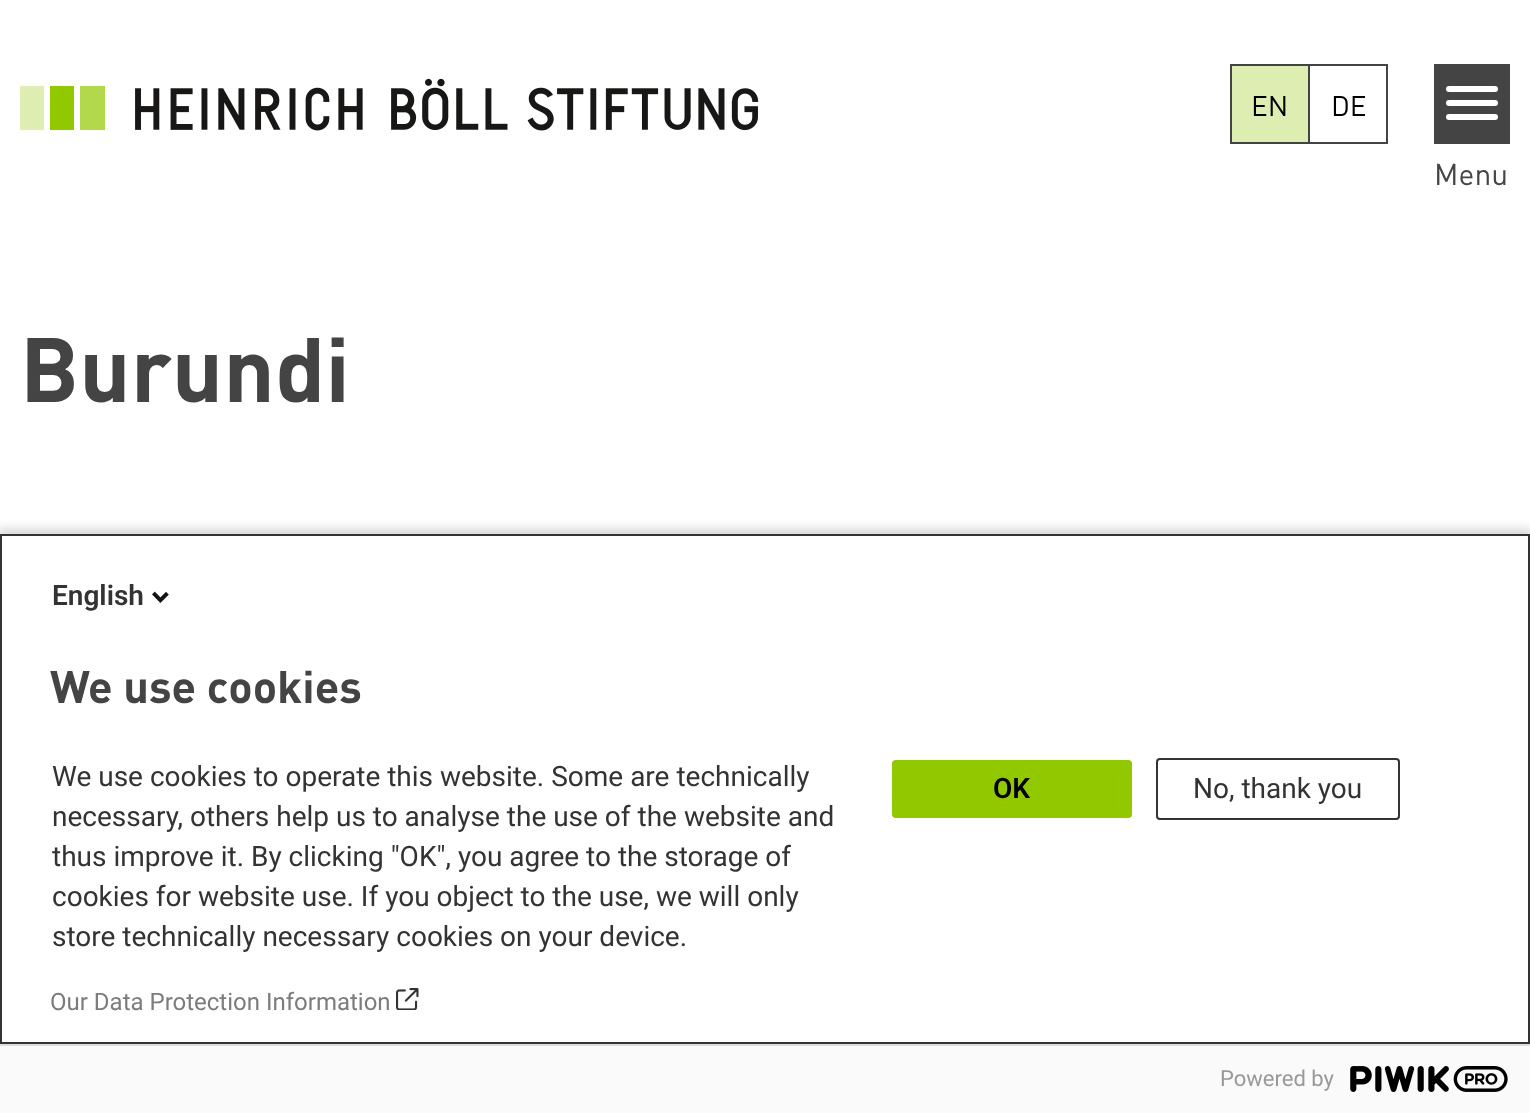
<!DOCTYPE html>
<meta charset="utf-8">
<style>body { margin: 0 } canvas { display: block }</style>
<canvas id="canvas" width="1530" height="1113"></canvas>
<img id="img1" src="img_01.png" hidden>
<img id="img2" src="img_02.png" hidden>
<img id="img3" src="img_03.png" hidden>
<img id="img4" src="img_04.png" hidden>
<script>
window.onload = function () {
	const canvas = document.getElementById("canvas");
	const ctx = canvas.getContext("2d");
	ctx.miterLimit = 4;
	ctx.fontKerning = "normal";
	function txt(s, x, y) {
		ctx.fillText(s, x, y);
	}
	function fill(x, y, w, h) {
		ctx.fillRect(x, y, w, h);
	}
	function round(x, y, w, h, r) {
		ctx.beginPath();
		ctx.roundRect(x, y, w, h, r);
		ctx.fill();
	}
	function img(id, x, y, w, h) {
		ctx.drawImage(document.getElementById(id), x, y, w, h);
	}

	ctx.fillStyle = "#FFFFFF";
	fill(0, 0, 1530, 1113);
	img("img1", 20, 78, 739, 53);
	ctx.fillStyle = "#444444";
	fill(1230, 64, 78, 2);
	fill(1230, 142, 78, 2);
	fill(1230, 64, 2, 80);
	ctx.fillStyle = "#DEEEB2";
	fill(1232, 66, 76, 76);
	ctx.strokeStyle = "#444444";
	ctx.lineWidth = 2;
	ctx.strokeRect(1309, 65, 78, 78);
	ctx.fillStyle = "#444444";
	fill(1434, 64, 76, 80);
	ctx.fillStyle = "#FFFFFF";
	round(1446, 100, 52, 6, 3);
	round(1446, 86, 52, 6, 3);
	round(1446, 114, 52, 6, 3);
	ctx.fillStyle = "rgba(0, 0, 0, 0.14)";
	ctx.filter = "blur(5px)";
	ctx.beginPath();
	ctx.rect(-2, 528, 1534, 584);
	ctx.fill();
	ctx.filter = "none";
	ctx.fillStyle = "#FFFFFF";
	ctx.beginPath();
	ctx.rect(1, 535, 1528, 508);
	ctx.fill();
	ctx.strokeStyle = "#333333";
	ctx.stroke();
	img("img2", 152, 591, 17, 12);
	img("img3", 396, 988, 23, 22);
	ctx.fillStyle = "#91C800";
	round(892, 760, 240, 58, 4);
	ctx.beginPath();
	ctx.roundRect(1157, 759, 242, 60, 3);
	ctx.stroke();
	ctx.fillStyle = "#FAFAFA";
	fill(0, 1046, 1530, 67);
	ctx.fillStyle = "#DDDDDD";
	fill(0, 1044, 1530, 2);
	img("img4", 1350, 1066, 158, 26);
	ctx.font = "28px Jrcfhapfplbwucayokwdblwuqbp";
	ctx.fillStyle = "#000000";
	txt("EN", 1251, 116);
	txt("DE", 1331, 116);
	ctx.font = "30px Jrcfhapfplbwucayokwdblwuqbp";
	ctx.fillStyle = "#444444";
	txt("Menu", 1434, 185);
	ctx.font = "bold 90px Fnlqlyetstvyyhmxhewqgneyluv";
	txt("Burundi", 20, 402);
	ctx.font = "600 28px Roboto";
	ctx.fillStyle = "#333333";
	txt("English", 52, 605);
	ctx.font = "bold 45px Fnlqlyetstvyyhmxhewqgneyluv";
	ctx.fillStyle = "#444444";
	txt("We use cookies", 50, 703);
	ctx.font = "28px Roboto";
	ctx.fillStyle = "#333333";
	txt("We use cookies to operate this website. Some are technically", 52, 786);
	txt("necessary, others help us to analyse the use of the website and", 52, 826);
	txt("thus improve it. By clicking \"OK\", you agree to the storage of", 52, 866);
	txt("cookies for website use. If you object to the use, we will only", 52, 906);
	txt("store technically necessary cookies on your device.", 52, 946);
	ctx.font = "24px Roboto";
	ctx.fillStyle = "#7C7C7C";
	txt("Our Data Protection Information", 50, 1010);
	ctx.font = "600 28px Roboto";
	ctx.fillStyle = "#000000";
	txt("OK", 993, 798);
	ctx.font = "28px Roboto";
	ctx.fillStyle = "#333333";
	txt("No, thank you", 1193, 798);
	ctx.font = "22px Roboto";
	ctx.fillStyle = "#999999";
	txt("Powered by", 1220, 1086);
};
</script>
